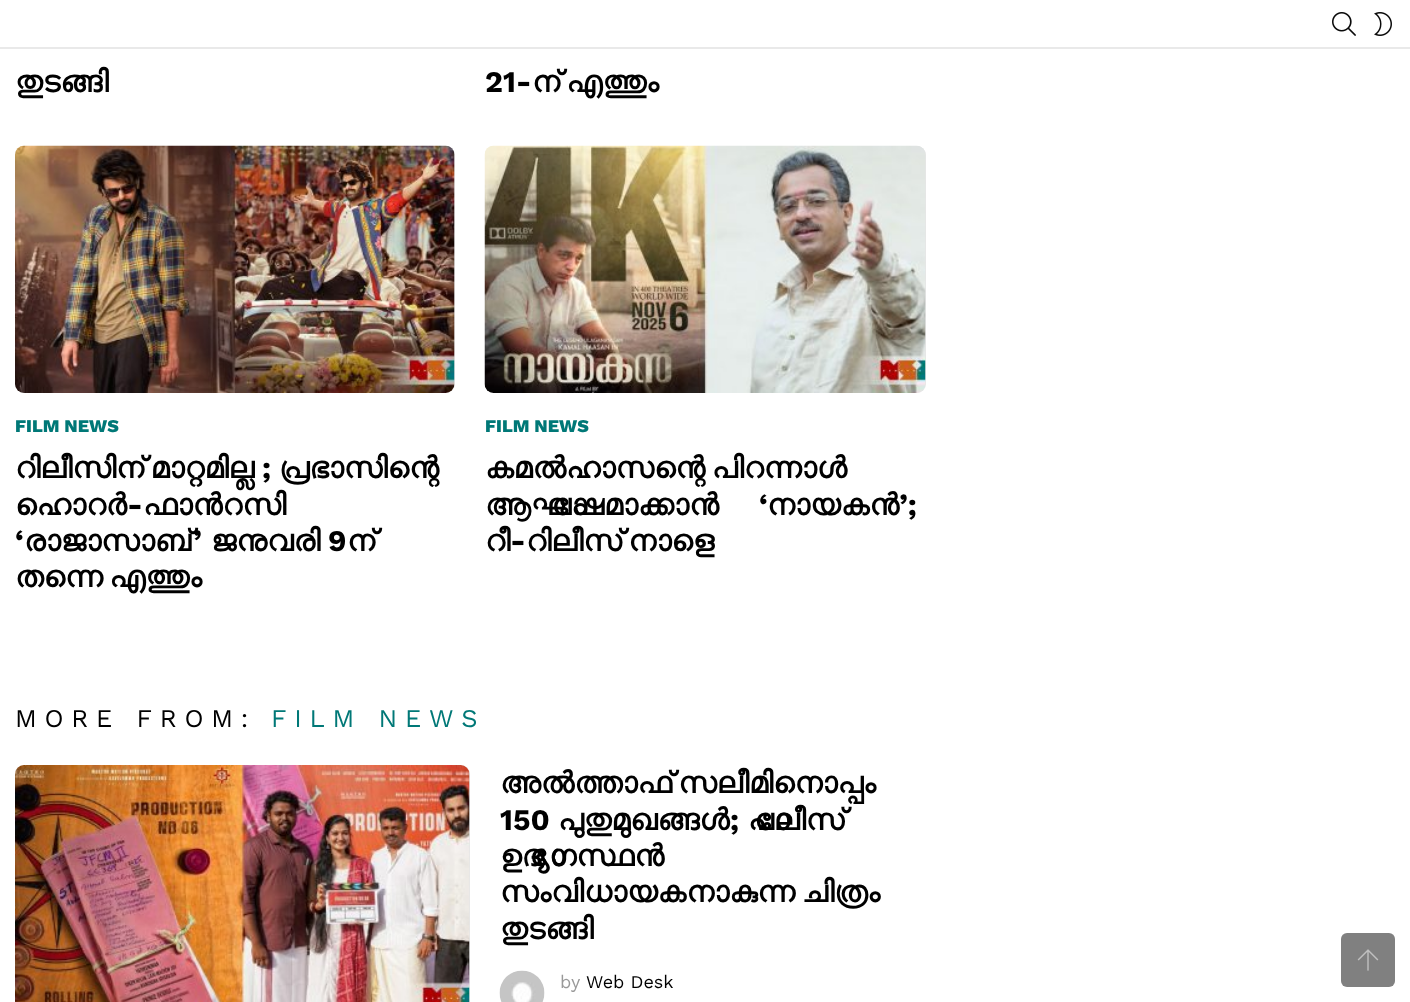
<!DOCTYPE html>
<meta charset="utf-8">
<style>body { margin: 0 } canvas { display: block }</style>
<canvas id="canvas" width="1410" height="1002"></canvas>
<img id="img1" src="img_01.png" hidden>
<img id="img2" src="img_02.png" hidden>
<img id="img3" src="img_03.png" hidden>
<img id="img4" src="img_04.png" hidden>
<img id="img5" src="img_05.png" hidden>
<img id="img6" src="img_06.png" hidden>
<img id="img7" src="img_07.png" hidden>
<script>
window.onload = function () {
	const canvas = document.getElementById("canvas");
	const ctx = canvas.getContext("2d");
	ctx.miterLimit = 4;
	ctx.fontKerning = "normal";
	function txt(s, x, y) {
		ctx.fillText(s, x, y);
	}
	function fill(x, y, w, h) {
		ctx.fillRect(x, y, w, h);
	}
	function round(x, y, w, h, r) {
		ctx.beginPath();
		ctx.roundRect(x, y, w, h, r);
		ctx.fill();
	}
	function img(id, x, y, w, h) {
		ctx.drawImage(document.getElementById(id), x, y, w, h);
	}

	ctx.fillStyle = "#FFFFFF";
	fill(0, 0, 1410, 1002);
	img("img1", 1332, 12, 24, 24);
	img("img2", 1374, 12, 18, 24);
	ctx.fillStyle = "#E9E9E9";
	fill(0, 47, 1410, 2);
	ctx.fillStyle = "#E6E6E6";
	round(15, 146, 440, 247, 9);
	img("img3", 15, 145, 440, 248);
	round(485, 146, 441, 247, 9);
	img("img4", 484, 145, 442, 248);
	round(15, 765, 455, 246, 9);
	img("img5", 15, 765, 455, 237);
	img("img6", 499, 970, 46, 32);
	ctx.fillStyle = "#808080";
	round(1341, 933, 54, 54, 6);
	img("img7", 1357, 949, 22, 22);
	ctx.font = "bold 30px FreeSans";
	ctx.fillStyle = "#000000";
	txt("തുടങ്ങി", 15, 92);
	ctx.font = "bold 30px Work Sans";
	txt("21-", 485, 92);
	ctx.wordSpacing = "-1px";
	ctx.font = "bold 30px FreeSans";
	txt("ന് എത്തും", 532, 92);
	ctx.wordSpacing = "0px";
	ctx.font = "800 18px Work Sans";
	ctx.fillStyle = "#007877";
	txt("FILM NEWS", 15, 432);
	ctx.wordSpacing = "-1px";
	ctx.font = "bold 30px FreeSans";
	ctx.fillStyle = "#000000";
	txt("റിലീസിന് മാറ്റമില്ല", 15, 478);
	ctx.wordSpacing = "0px";
	ctx.font = "bold 30px Work Sans";
	txt(";", 262, 478);
	ctx.font = "bold 30px FreeSans";
	txt("പ്രഭാസിന്റെ", 279, 478);
	txt("ഹൊറർ", 15, 515);
	ctx.font = "bold 30px Work Sans";
	txt("-", 127, 515);
	ctx.font = "bold 30px FreeSans";
	txt("ഫാന്‍റസി", 143, 515);
	ctx.font = "bold 30px Work Sans";
	txt("‘", 15, 551);
	ctx.font = "bold 30px FreeSans";
	txt("രാജാസാബ്", 24, 551);
	ctx.font = "bold 30px Work Sans";
	txt("’", 193, 551);
	ctx.font = "bold 30px FreeSans";
	txt("ജനുവരി", 211, 551);
	ctx.font = "bold 30px Work Sans";
	txt("9", 328, 551);
	ctx.font = "bold 30px FreeSans";
	txt("ന്", 347, 551);
	ctx.wordSpacing = "-1px";
	txt("തന്നെ എത്തും", 15, 587);
	ctx.wordSpacing = "0px";
	ctx.font = "800 18px Work Sans";
	ctx.fillStyle = "#007877";
	txt("FILM NEWS", 485, 432);
	ctx.wordSpacing = "-1px";
	ctx.font = "bold 30px FreeSans";
	ctx.fillStyle = "#000000";
	txt("കമൽഹാസന്റെ പിറന്നാൾ", 485, 478);
	ctx.wordSpacing = "0px";
	txt("ആഘോഷമാക്കാൻ", 485, 515);
	ctx.font = "bold 30px Work Sans";
	txt("‘", 759, 515);
	ctx.font = "bold 30px FreeSans";
	txt("നായകൻ", 767, 515);
	ctx.font = "bold 30px Work Sans";
	txt("’;", 899, 515);
	ctx.font = "bold 30px FreeSans";
	txt("റീ", 485, 551);
	ctx.font = "bold 30px Work Sans";
	txt("-", 510, 551);
	ctx.wordSpacing = "-1px";
	ctx.font = "bold 30px FreeSans";
	txt("റിലീസ് നാളെ", 526, 551);
	ctx.letterSpacing = "7.75px";
	ctx.wordSpacing = "0px";
	ctx.font = "25.5px Work Sans";
	txt("MORE FROM:", 15, 727);
	ctx.fillStyle = "#007877";
	txt("FILM NEWS", 271, 727);
	ctx.letterSpacing = "0px";
	ctx.wordSpacing = "-1px";
	ctx.font = "bold 30px FreeSans";
	ctx.fillStyle = "#000000";
	txt("അൽത്താഫ് സലീമിനൊപ്പം", 500, 793);
	ctx.wordSpacing = "0px";
	ctx.font = "bold 30px Work Sans";
	txt("150", 500, 830);
	ctx.font = "bold 30px FreeSans";
	txt("പുതുമുഖങ്ങൾ", 558, 830);
	ctx.font = "bold 30px Work Sans";
	txt(";", 730, 830);
	ctx.font = "bold 30px FreeSans";
	txt("പോലീസ്", 748, 830);
	txt("ഉദ്യോഗസ്ഥൻ", 500, 866);
	ctx.wordSpacing = "-1px";
	txt("സംവിധായകനാകുന്ന ചിത്രം", 500, 902);
	ctx.wordSpacing = "0px";
	txt("തുടങ്ങി", 500, 939);
	ctx.font = "18px Work Sans";
	ctx.fillStyle = "#999999";
	txt("by", 560, 988);
	ctx.fillStyle = "#000000";
	txt("Web Desk", 586, 988);
};
</script>
